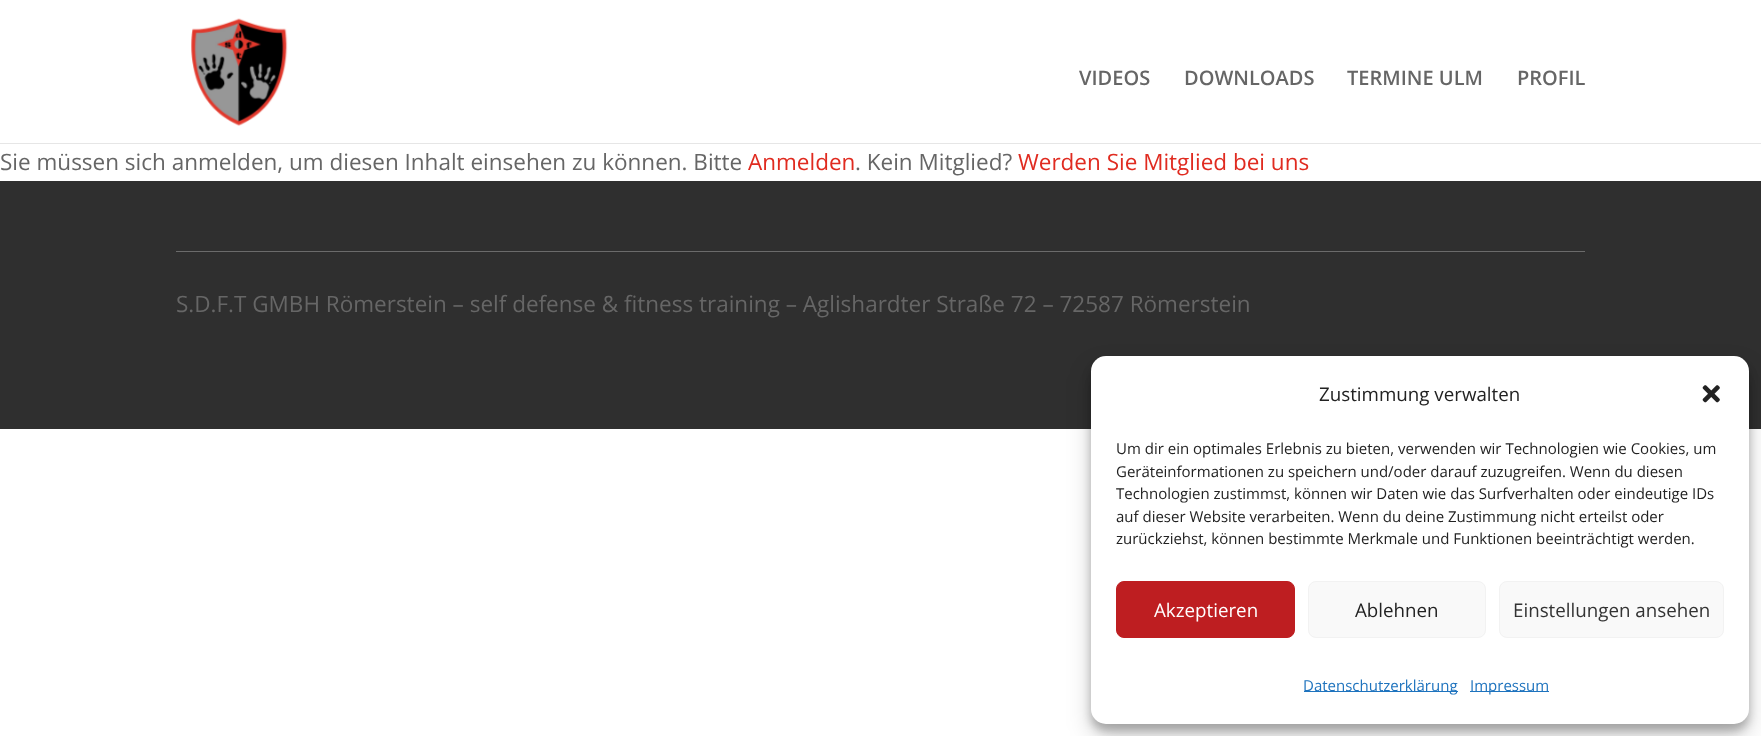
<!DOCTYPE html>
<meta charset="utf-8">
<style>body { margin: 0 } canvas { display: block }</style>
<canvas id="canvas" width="1761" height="736"></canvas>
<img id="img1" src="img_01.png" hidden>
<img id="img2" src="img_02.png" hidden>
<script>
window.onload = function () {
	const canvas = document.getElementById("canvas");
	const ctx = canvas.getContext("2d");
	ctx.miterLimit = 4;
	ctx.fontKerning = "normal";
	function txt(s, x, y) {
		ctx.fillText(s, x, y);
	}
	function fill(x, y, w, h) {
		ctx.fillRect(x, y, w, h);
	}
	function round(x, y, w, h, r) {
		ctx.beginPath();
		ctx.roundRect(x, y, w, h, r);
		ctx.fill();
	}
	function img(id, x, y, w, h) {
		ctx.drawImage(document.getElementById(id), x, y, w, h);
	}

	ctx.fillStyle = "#FFFFFF";
	fill(0, 0, 1761, 736);
	ctx.fillStyle = "#E6E6E6";
	fill(0, 143, 1761, 1);
	img("img1", 191, 18, 97, 108);
	ctx.fillStyle = "#2F2F2F";
	fill(0, 181, 1761, 248);
	ctx.fillStyle = "#6B6B6B";
	fill(176, 251, 1409, 1);
	ctx.fillStyle = "rgba(0, 0, 0, 0.23)";
	ctx.filter = "blur(4px)";
	ctx.beginPath();
	ctx.roundRect(1091, 364, 658, 367, 15);
	ctx.fill();
	ctx.filter = "none";
	ctx.fillStyle = "rgba(0, 0, 0, 0.19)";
	ctx.filter = "blur(12.5px)";
	ctx.beginPath();
	ctx.roundRect(1091, 369, 658, 367, 15);
	ctx.fill();
	ctx.filter = "none";
	ctx.fillStyle = "#FFFFFF";
	round(1091, 356, 658, 368, 15);
	img("img2", 1702, 385, 18, 18);
	ctx.fillStyle = "#BE1E21";
	ctx.beginPath();
	ctx.roundRect(1116.5, 581.5, 178, 56, 7.5);
	ctx.fill();
	ctx.strokeStyle = "#BE1E21";
	ctx.stroke();
	ctx.fillStyle = "#F9F9F9";
	ctx.beginPath();
	ctx.roundRect(1308.5, 581.5, 177, 56, 7.5);
	ctx.fill();
	ctx.strokeStyle = "#F2F2F2";
	ctx.stroke();
	ctx.beginPath();
	ctx.roundRect(1499.5, 581.5, 224, 56, 7.5);
	ctx.fill();
	ctx.stroke();
	ctx.fillStyle = "#1E73BE";
	fill(1304, 691, 154, 1);
	fill(1470, 691, 79, 1);
	ctx.font = "600 20px Open Sans";
	ctx.fillStyle = "#666666";
	txt("VIDEOS", 1079, 85);
	txt("DOWNLOADS", 1184, 85);
	txt("TERMINE ULM", 1347, 85);
	txt("PROFIL", 1517, 85);
	ctx.font = "22.5px Open Sans";
	txt("Sie müssen sich anmelden, um diesen Inhalt einsehen zu können. Bitte", 0, 170);
	ctx.fillStyle = "#E02B20";
	txt("Anmelden", 748, 170);
	ctx.fillStyle = "#666666";
	txt(". Kein Mitglied?", 855, 170);
	ctx.fillStyle = "#E02B20";
	txt("Werden Sie Mitglied bei uns", 1018, 170);
	ctx.fillStyle = "#666666";
	txt("S.D.F.T GMBH Römerstein – self defense & fitness training – Aglishardter Straße 72 – 72587 Römerstein", 176, 312);
	ctx.font = "18.75px Open Sans";
	ctx.fillStyle = "#222222";
	txt("Zustimmung verwalten", 1319, 401);
	ctx.font = "15px Open Sans";
	txt("Um dir ein optimales Erlebnis zu bieten, verwenden wir Technologien wie Cookies, um", 1116, 454);
	txt("Geräteinformationen zu speichern und/oder darauf zuzugreifen. Wenn du diesen", 1116, 477);
	txt("Technologien zustimmst, können wir Daten wie das Surfverhalten oder eindeutige IDs", 1116, 499);
	txt("auf dieser Website verarbeiten. Wenn du deine Zustimmung nicht erteilst oder", 1116, 522);
	txt("zurückziehst, können bestimmte Merkmale und Funktionen beeinträchtigt werden.", 1116, 544);
	ctx.font = "18.75px Open Sans";
	ctx.fillStyle = "#FFFFFF";
	txt("Akzeptieren", 1154, 617);
	ctx.fillStyle = "#222222";
	txt("Ablehnen", 1355, 617);
	ctx.fillStyle = "#333333";
	txt("Einstellungen ansehen", 1513, 617);
	ctx.font = "15px Open Sans";
	ctx.fillStyle = "#1E73BE";
	txt("Datenschutzerklärung", 1303, 691);
	txt("Impressum", 1470, 691);
};
</script>
